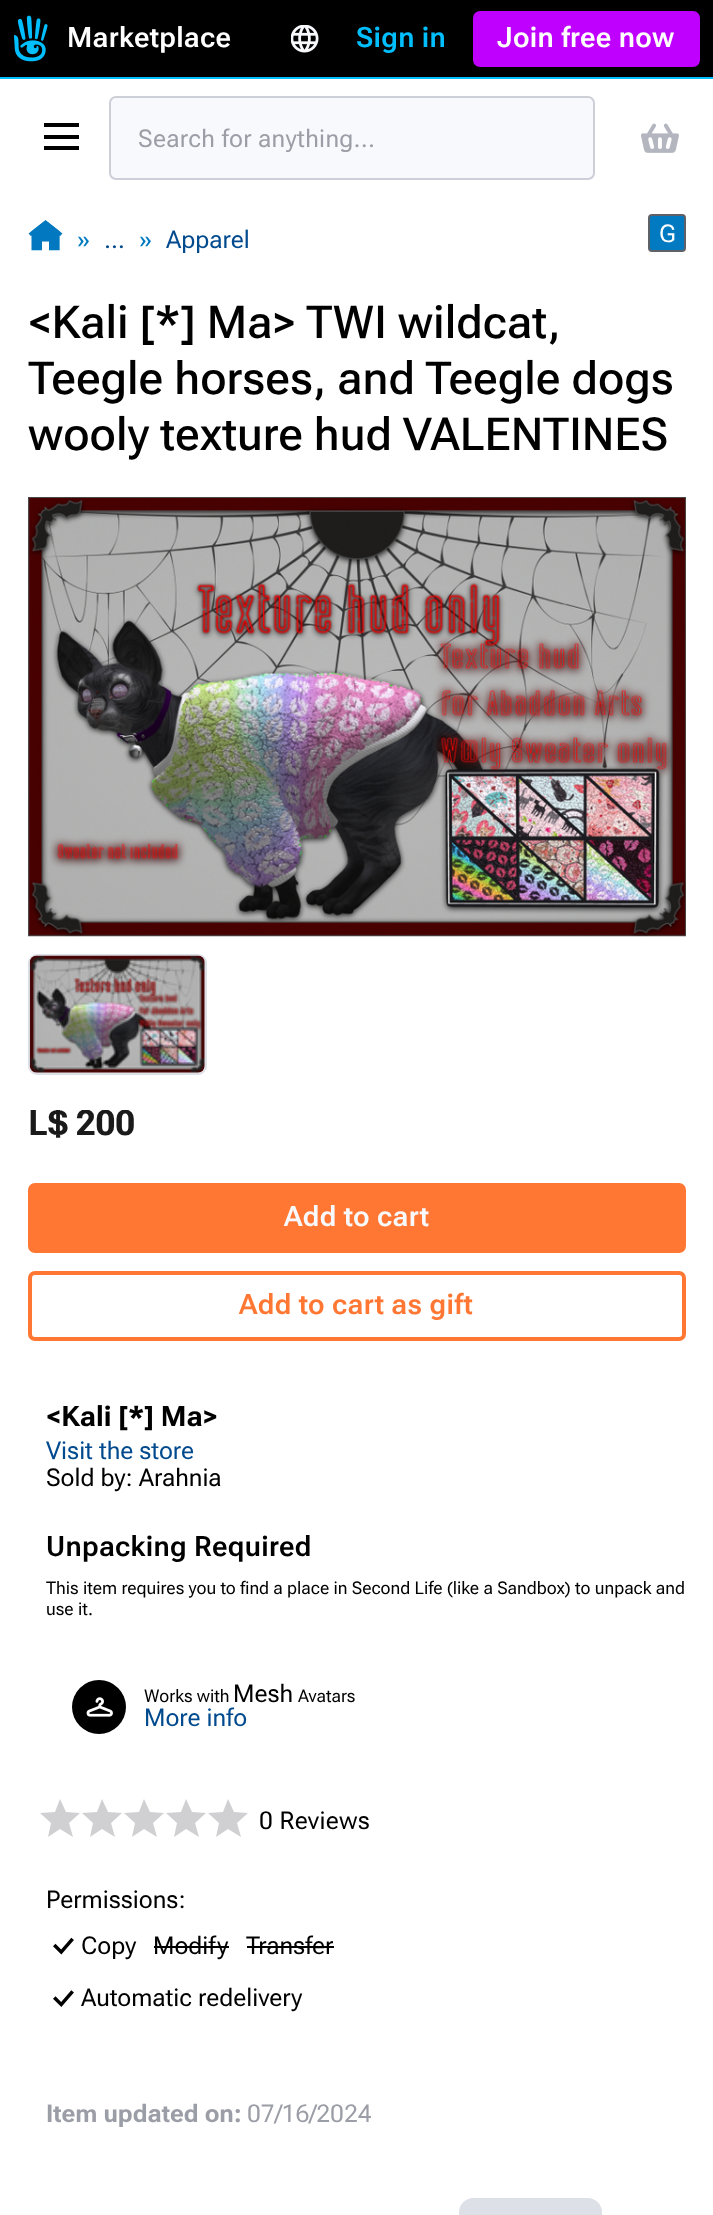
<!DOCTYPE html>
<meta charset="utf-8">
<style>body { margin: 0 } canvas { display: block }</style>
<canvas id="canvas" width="713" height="2215"></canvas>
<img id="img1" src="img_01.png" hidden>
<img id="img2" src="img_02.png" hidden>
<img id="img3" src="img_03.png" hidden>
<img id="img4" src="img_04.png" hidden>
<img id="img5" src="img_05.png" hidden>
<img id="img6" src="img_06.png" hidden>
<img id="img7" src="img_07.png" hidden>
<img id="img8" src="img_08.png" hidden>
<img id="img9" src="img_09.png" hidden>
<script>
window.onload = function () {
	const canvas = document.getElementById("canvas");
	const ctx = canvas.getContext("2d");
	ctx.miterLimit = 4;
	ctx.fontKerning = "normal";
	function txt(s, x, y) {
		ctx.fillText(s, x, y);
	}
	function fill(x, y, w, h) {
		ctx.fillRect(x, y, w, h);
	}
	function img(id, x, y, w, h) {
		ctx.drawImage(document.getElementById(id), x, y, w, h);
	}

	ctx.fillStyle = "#FFFFFF";
	fill(0, 0, 713, 2215);
	ctx.fillStyle = "#000000";
	fill(0, 0, 713, 77);
	ctx.fillStyle = "#00BFFF";
	fill(0, 77, 713, 2);
	img("img1", 14, 15, 34, 47);
	img("img2", 291, 25, 28, 28);
	ctx.fillStyle = "#BF00FF";
	ctx.beginPath();
	ctx.roundRect(475, 13, 223, 52, 5);
	ctx.fill();
	ctx.strokeStyle = "#BF00FF";
	ctx.lineWidth = 4;
	ctx.stroke();
	ctx.fillStyle = "#000000";
	fill(44, 123, 35, 4);
	fill(44, 135, 35, 4);
	fill(44, 146, 35, 4);
	ctx.fillStyle = "#F8F9FC";
	ctx.beginPath();
	ctx.roundRect(110, 97, 484, 82, 6);
	ctx.fill();
	ctx.strokeStyle = "#CCCFD7";
	ctx.lineWidth = 2;
	ctx.stroke();
	img("img3", 641, 123, 38, 30);
	img("img4", 28, 220, 35, 31);
	ctx.fillStyle = "#017AC1";
	ctx.beginPath();
	ctx.roundRect(649, 215, 36, 36, 3);
	ctx.fill();
	ctx.strokeStyle = "#606166";
	ctx.stroke();
	img("img5", 28, 497, 658, 440);
	ctx.beginPath();
	ctx.roundRect(29, 955, 177, 119, 8);
	ctx.strokeStyle = "#DEE0E8";
	ctx.stroke();
	img("img6", 29, 955, 176, 118);
	ctx.fillStyle = "#FF7733";
	ctx.beginPath();
	ctx.roundRect(30, 1185, 654, 66, 5);
	ctx.fill();
	ctx.strokeStyle = "#FF7733";
	ctx.lineWidth = 4;
	ctx.stroke();
	ctx.beginPath();
	ctx.roundRect(30, 1273, 654, 66, 5);
	ctx.stroke();
	ctx.fillStyle = "#000000";
	ctx.beginPath();
	ctx.arc(99, 1707, 27, 0, Math.PI * 2);
	ctx.fill();
	img("img7", 86, 1697, 27, 20);
	ctx.fillStyle = "#D0D0D3";
	ctx.beginPath();
	ctx.moveTo(60, 1829);
	ctx.lineTo(73, 1837);
	ctx.lineTo(69, 1823);
	ctx.lineTo(80, 1813);
	ctx.lineTo(66, 1812);
	ctx.lineTo(60, 1799);
	ctx.lineTo(55, 1812);
	ctx.lineTo(40, 1813);
	ctx.lineTo(51, 1823);
	ctx.lineTo(48, 1837);
	ctx.closePath();
	ctx.fill("evenodd");
	ctx.beginPath();
	ctx.moveTo(102, 1829);
	ctx.lineTo(115, 1837);
	ctx.lineTo(111, 1823);
	ctx.lineTo(122, 1813);
	ctx.lineTo(108, 1812);
	ctx.lineTo(102, 1799);
	ctx.lineTo(97, 1812);
	ctx.lineTo(82, 1813);
	ctx.lineTo(93, 1823);
	ctx.lineTo(90, 1837);
	ctx.closePath();
	ctx.fill("evenodd");
	ctx.beginPath();
	ctx.moveTo(144, 1829);
	ctx.lineTo(157, 1837);
	ctx.lineTo(153, 1823);
	ctx.lineTo(164, 1813);
	ctx.lineTo(150, 1812);
	ctx.lineTo(144, 1799);
	ctx.lineTo(139, 1812);
	ctx.lineTo(124, 1813);
	ctx.lineTo(135, 1823);
	ctx.lineTo(132, 1837);
	ctx.closePath();
	ctx.fill("evenodd");
	ctx.beginPath();
	ctx.moveTo(186, 1829);
	ctx.lineTo(199, 1837);
	ctx.lineTo(195, 1823);
	ctx.lineTo(206, 1813);
	ctx.lineTo(192, 1812);
	ctx.lineTo(186, 1799);
	ctx.lineTo(181, 1812);
	ctx.lineTo(166, 1813);
	ctx.lineTo(177, 1823);
	ctx.lineTo(174, 1837);
	ctx.closePath();
	ctx.fill("evenodd");
	ctx.beginPath();
	ctx.moveTo(228, 1829);
	ctx.lineTo(241, 1837);
	ctx.lineTo(237, 1823);
	ctx.lineTo(248, 1813);
	ctx.lineTo(234, 1812);
	ctx.lineTo(228, 1799);
	ctx.lineTo(223, 1812);
	ctx.lineTo(208, 1813);
	ctx.lineTo(219, 1823);
	ctx.lineTo(216, 1837);
	ctx.closePath();
	ctx.fill("evenodd");
	img("img8", 53, 1937, 21, 18);
	ctx.fillStyle = "#000000";
	fill(154, 1946, 75, 2);
	fill(247, 1946, 87, 2);
	img("img9", 53, 1990, 21, 17);
	ctx.fillStyle = "#DEE0E8";
	ctx.beginPath();
	ctx.moveTo(473, 2198);
	ctx.lineTo(588, 2198);
	ctx.bezierCurveTo(595.5, 2198, 602, 2204.5, 602, 2212);
	ctx.lineTo(602, 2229);
	ctx.lineTo(459, 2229);
	ctx.lineTo(459, 2212);
	ctx.bezierCurveTo(459, 2204.5, 465.5, 2198, 473, 2198);
	ctx.closePath();
	ctx.fill();
	ctx.letterSpacing = "0.3px";
	ctx.font = "600 28px Roboto Flex";
	ctx.fillStyle = "#FFFFFF";
	txt("Marketplace", 67, 47);
	ctx.fillStyle = "#00BFFF";
	txt("Sign in", 356, 47);
	ctx.fillStyle = "#FFFFFF";
	txt("Join free now", 497, 47);
	ctx.save();
	ctx.beginPath();
	ctx.rect(138, 124, 427, 28);
	ctx.clip();
	ctx.font = "24.5px Roboto Flex";
	ctx.fillStyle = "#9B9EA6";
	txt("Search for anything...", 138, 147);
	ctx.restore();
	ctx.letterSpacing = "0px";
	ctx.font = "24.5px Roboto Flex";
	ctx.fillStyle = "#017AC1";
	txt("»", 77, 248);
	ctx.fillStyle = "#014A8E";
	txt("…", 104, 248);
	ctx.fillStyle = "#017AC1";
	txt("»", 139, 248);
	ctx.fillStyle = "#014A8E";
	txt("Apparel", 166, 248);
	ctx.fillStyle = "#FFFFFF";
	txt("G", 659, 242);
	ctx.font = "500 45.5px Roboto Flex";
	ctx.fillStyle = "#000000";
	txt("<Kali [*] Ma> TWI wildcat,", 28, 338);
	txt("Teegle horses, and Teegle dogs", 28, 394);
	txt("wooly texture hud VALENTINES", 28, 450);
	ctx.save();
	ctx.beginPath();
	ctx.rect(28, 1110, 658, 1018);
	ctx.clip();
	ctx.font = "bold 35px Roboto Flex";
	ctx.fillStyle = "#1A1A1A";
	txt("L$ 200", 28, 1135);
	ctx.restore();
	ctx.letterSpacing = "0.3px";
	ctx.font = "600 28px Roboto Flex";
	ctx.fillStyle = "#F8F9FC";
	txt("Add to cart", 284, 1226);
	ctx.fillStyle = "#FF7733";
	txt("Add to cart as gift", 239, 1314);
	ctx.letterSpacing = "0px";
	ctx.font = "bold 28px Roboto Flex";
	ctx.fillStyle = "#000000";
	txt("<Kali [*] Ma>", 46, 1426);
	ctx.font = "24.5px Roboto Flex";
	ctx.fillStyle = "#014A8E";
	txt("Visit the store", 46, 1459);
	ctx.fillStyle = "#000000";
	txt("Sold by: Arahnia", 46, 1486);
	ctx.letterSpacing = "0.3px";
	ctx.font = "600 28px Roboto Flex";
	txt("Unpacking Required", 46, 1556);
	ctx.letterSpacing = "0px";
	ctx.font = "17.5px Roboto Flex";
	txt("This item requires you to find a place in Second Life (like a Sandbox) to unpack and", 46, 1594);
	txt("use it.", 46, 1615);
	txt("Works with", 144, 1702);
	ctx.font = "24.5px Roboto Flex";
	txt("Mesh", 233, 1702);
	ctx.font = "17.5px Roboto Flex";
	txt("Avatars", 298, 1702);
	ctx.font = "24.5px Roboto Flex";
	ctx.fillStyle = "#014A8E";
	txt("More info", 144, 1726);
	ctx.letterSpacing = "0.3px";
	ctx.fillStyle = "#000000";
	txt("0 Reviews", 259, 1829);
	ctx.letterSpacing = "0px";
	txt("Permissions:", 46, 1908);
	txt("Copy", 81, 1954);
	txt("Modify", 153, 1954);
	txt("Transfer", 246, 1954);
	txt("Automatic redelivery", 81, 2006);
	ctx.font = "bold 24.5px Roboto Flex";
	ctx.fillStyle = "#9B9EA6";
	txt("Item updated on:", 46, 2122);
	ctx.font = "24.5px Roboto Flex";
	txt("07/16/2024", 247, 2122);
};
</script>
